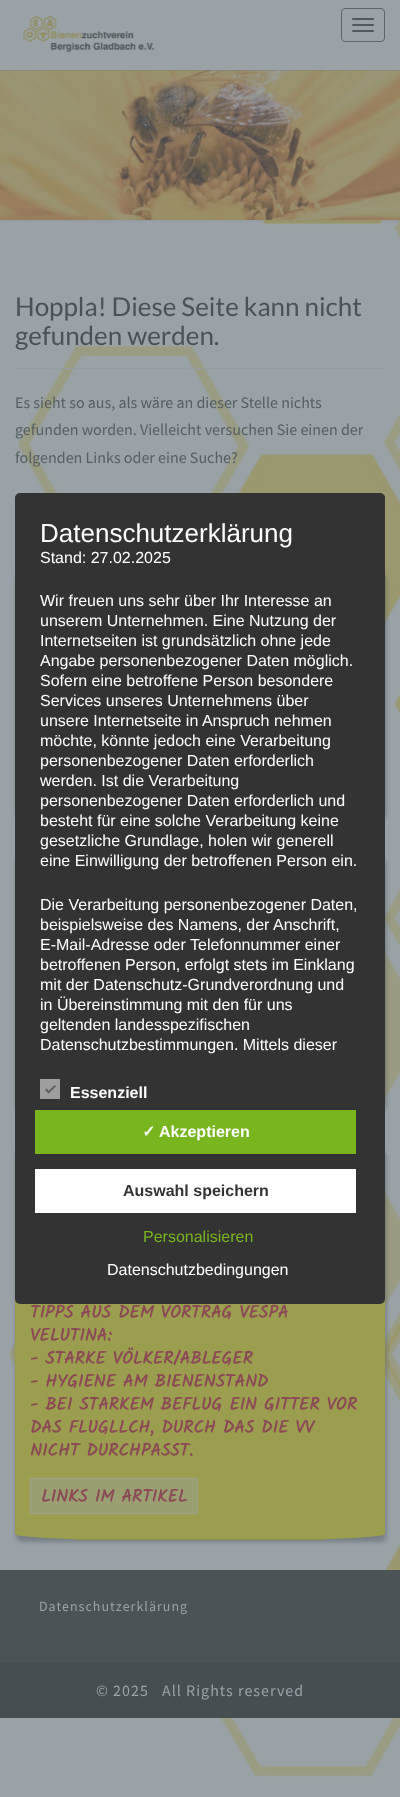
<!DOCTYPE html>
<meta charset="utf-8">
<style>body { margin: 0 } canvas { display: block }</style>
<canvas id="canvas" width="400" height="1797"></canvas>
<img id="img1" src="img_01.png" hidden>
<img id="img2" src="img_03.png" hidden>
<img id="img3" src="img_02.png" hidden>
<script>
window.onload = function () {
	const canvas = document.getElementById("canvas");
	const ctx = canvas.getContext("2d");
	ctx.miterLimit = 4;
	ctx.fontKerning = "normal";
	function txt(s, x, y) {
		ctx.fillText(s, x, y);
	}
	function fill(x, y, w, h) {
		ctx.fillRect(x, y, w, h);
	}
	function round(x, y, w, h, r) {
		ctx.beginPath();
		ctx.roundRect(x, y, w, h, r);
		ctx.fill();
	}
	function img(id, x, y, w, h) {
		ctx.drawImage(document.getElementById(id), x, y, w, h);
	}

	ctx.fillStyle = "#FFFFFF";
	fill(0, 0, 400, 1797);
	img("img1", 0, 220, 400, 1577);
	ctx.fillStyle = "rgba(128, 136, 140, 0.3)";
	ctx.filter = "blur(1px)";
	ctx.beginPath();
	ctx.rect(-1, 49, 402, 172);
	ctx.fill();
	ctx.filter = "none";
	img("img2", 0, 70, 400, 150);
	ctx.fillStyle = "rgba(99, 106, 111, 0.2)";
	ctx.filter = "blur(0.5px)";
	ctx.beginPath();
	ctx.rect(0, 1, 400, 70);
	ctx.fill();
	ctx.filter = "none";
	ctx.fillStyle = "#9BA2A7";
	fill(0, 0, 400, 70);
	img("img3", 22, 14, 133, 39);
	ctx.beginPath();
	ctx.roundRect(341.5, 8.5, 43, 33, 3.5);
	ctx.strokeStyle = "#58676F";
	ctx.stroke();
	ctx.fillStyle = "#51595D";
	round(352, 18, 22, 2, 1);
	round(352, 24, 22, 2, 1);
	round(352, 30, 22, 2, 1);
	ctx.fillStyle = "#949CA1";
	fill(15, 368, 370, 1);
	ctx.beginPath();
	ctx.roundRect(15.5, 495.5, 369, 34, [1.5, 0, 0, 1.5]);
	ctx.strokeStyle = "#7C8087";
	ctx.stroke();
	ctx.beginPath();
	ctx.roundRect(343.5, 495.5, 41, 34, [0, 1.5, 1.5, 0]);
	ctx.strokeStyle = "#58676F";
	ctx.stroke();
	ctx.fillStyle = "rgba(63, 70, 75, 0.15)";
	ctx.filter = "blur(1.5px)";
	ctx.beginPath();
	ctx.roundRect(18, 575, 370, 245, 6);
	ctx.fill();
	ctx.filter = "none";
	ctx.fillStyle = "rgba(63, 70, 75, 0.27)";
	ctx.filter = "blur(2px)";
	ctx.beginPath();
	ctx.roundRect(15, 573, 370, 245, 6);
	ctx.fill();
	ctx.filter = "none";
	ctx.fillStyle = "rgba(63, 70, 75, 0.15)";
	ctx.filter = "blur(1.5px)";
	ctx.beginPath();
	ctx.roundRect(18, 860, 370, 252, 6);
	ctx.fill();
	ctx.filter = "none";
	ctx.fillStyle = "rgba(63, 70, 75, 0.27)";
	ctx.filter = "blur(2px)";
	ctx.beginPath();
	ctx.roundRect(15, 858, 370, 252, 6);
	ctx.fill();
	ctx.filter = "none";
	ctx.fillStyle = "rgba(63, 70, 75, 0.15)";
	ctx.filter = "blur(1.5px)";
	ctx.beginPath();
	ctx.roundRect(18, 1152, 370, 391, 6);
	ctx.fill();
	ctx.filter = "none";
	ctx.fillStyle = "rgba(63, 70, 75, 0.27)";
	ctx.filter = "blur(2px)";
	ctx.beginPath();
	ctx.roundRect(15, 1150, 370, 391, 6);
	ctx.fill();
	ctx.filter = "none";
	ctx.fillStyle = "#9A9E4E";
	ctx.beginPath();
	ctx.moveTo(15, 1149);
	ctx.lineTo(385, 1149);
	ctx.lineTo(385, 1534);
	ctx.bezierCurveTo(385, 1537, 331, 1540, 265, 1540);
	ctx.lineTo(135, 1540);
	ctx.bezierCurveTo(69, 1540, 15, 1537, 15, 1534);
	ctx.closePath();
	ctx.fill();
	ctx.fillStyle = "#8B8F4B";
	fill(75, 1539, 250, 1);
	ctx.fillStyle = "#9A9F72";
	ctx.beginPath();
	ctx.rect(30.5, 1478.5, 167, 35);
	ctx.fill();
	ctx.strokeStyle = "#9BA18C";
	ctx.stroke();
	ctx.fillStyle = "#4B5357";
	fill(0, 1570, 400, 93);
	ctx.fillStyle = "#464E52";
	fill(0, 1663, 400, 55);
	ctx.fillStyle = "#333333";
	round(15, 493, 370, 811, 5);
	ctx.fillStyle = "#9E9E9E";
	fill(40, 1079, 20, 20);
	ctx.fillStyle = "#5E5E5E";
	ctx.beginPath();
	ctx.moveTo(54.5, 1085);
	ctx.lineTo(56, 1086.5);
	ctx.lineTo(48.5, 1093.5);
	ctx.lineTo(47.5, 1092);
	ctx.closePath();
	ctx.fill();
	ctx.beginPath();
	ctx.moveTo(46.5, 1088.5);
	ctx.lineTo(50, 1092);
	ctx.lineTo(48.5, 1093.5);
	ctx.lineTo(45, 1090);
	ctx.closePath();
	ctx.fill();
	ctx.fillStyle = "#79B51F";
	fill(35, 1110, 321, 44);
	ctx.fillStyle = "#FFFFFF";
	fill(35, 1169, 321, 44);
	ctx.font = "26px Lato";
	ctx.fillStyle = "#4B5257";
	txt("Hoppla! Diese Seite kann nicht", 15, 316);
	txt("gefunden werden.", 15, 345);
	ctx.font = "16px Source Sans Pro";
	ctx.fillStyle = "#565E63";
	txt("Es sieht so aus, als wäre an dieser Stelle nichts", 15, 408);
	txt("gefunden worden. Vielleicht versuchen Sie einen der", 15, 435);
	txt("folgenden Links oder eine Suche?", 15, 463);
	ctx.font = "bold 17.6px Kalam";
	ctx.fillStyle = "#8C4956";
	txt("TIPPS AUS DEM VORTRAG VESPA", 30, 1318);
	txt("VELUTINA:", 30, 1341);
	txt("- STARKE VÖLKER/ABLEGER", 30, 1364);
	txt("- HYGIENE AM BIENENSTAND", 30, 1387);
	txt("- BEI STARKEM BEFLUG EIN GITTER VOR", 30, 1410);
	txt("DAS FLUGLLCH, DURCH DAS DIE VV", 30, 1433);
	txt("NICHT DURCHPASST.", 30, 1456);
	txt("LINKS IM ARTIKEL", 41, 1502);
	ctx.letterSpacing = "1px";
	ctx.font = "14px Source Sans Pro";
	ctx.fillStyle = "#9BA2A7";
	txt("Datenschutzerklärung", 39, 1611);
	ctx.font = "16px Source Sans Pro";
	txt("© 2025", 96, 1696);
	txt("All Rights reserved", 162, 1696);
	ctx.letterSpacing = "0px";
	ctx.font = "26px Liberation Sans";
	ctx.fillStyle = "#FFFFFF";
	txt("Datenschutzerklärung", 40, 542);
	ctx.font = "16px Liberation Sans";
	txt("Stand: 27.02.2025", 40, 563);
	txt("Wir freuen uns sehr über Ihr Interesse an", 40, 606);
	txt("unserem Unternehmen. Eine Nutzung der", 40, 626);
	txt("Internetseiten ist grundsätzlich ohne jede", 40, 646);
	txt("Angabe personenbezogener Daten möglich.", 40, 666);
	txt("Sofern eine betroffene Person besondere", 40, 686);
	txt("Services unseres Unternehmens über", 40, 706);
	txt("unsere Internetseite in Anspruch nehmen", 40, 726);
	txt("möchte, könnte jedoch eine Verarbeitung", 40, 746);
	txt("personenbezogener Daten erforderlich", 40, 766);
	txt("werden. Ist die Verarbeitung", 40, 786);
	txt("personenbezogener Daten erforderlich und", 40, 806);
	txt("besteht für eine solche Verarbeitung keine", 40, 826);
	txt("gesetzliche Grundlage, holen wir generell", 40, 846);
	txt("eine Einwilligung der betroffenen Person ein.", 40, 866);
	txt("Die Verarbeitung personenbezogener Daten,", 40, 910);
	txt("beispielsweise des Namens, der Anschrift,", 40, 930);
	txt("E-Mail-Adresse oder Telefonnummer einer", 40, 950);
	txt("betroffenen Person, erfolgt stets im Einklang", 40, 970);
	txt("mit der Datenschutz-Grundverordnung und", 40, 990);
	txt("in Übereinstimmung mit den für uns", 40, 1010);
	txt("geltenden landesspezifischen", 40, 1030);
	txt("Datenschutzbestimmungen. Mittels dieser", 40, 1050);
	ctx.font = "bold 16px Liberation Sans";
	txt("Essenziell", 70, 1098);
	ctx.font = "bold 16px DejaVu Sans";
	txt("✓", 142, 1137);
	ctx.font = "bold 16px Liberation Sans";
	txt("Akzeptieren", 159, 1137);
	ctx.fillStyle = "#333333";
	txt("Auswahl speichern", 123, 1196);
	ctx.font = "16px Liberation Sans";
	ctx.fillStyle = "#79B51F";
	txt("Personalisieren", 143, 1242);
	ctx.fillStyle = "#FFFFFF";
	txt("Datenschutzbedingungen", 107, 1275);
};
</script>
